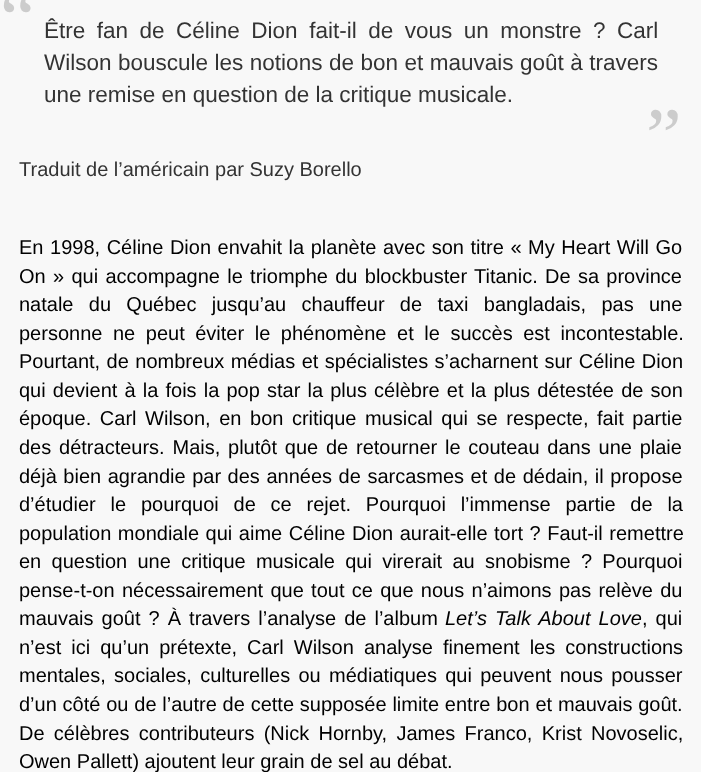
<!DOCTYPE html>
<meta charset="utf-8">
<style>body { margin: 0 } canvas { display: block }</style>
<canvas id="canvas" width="701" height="772"></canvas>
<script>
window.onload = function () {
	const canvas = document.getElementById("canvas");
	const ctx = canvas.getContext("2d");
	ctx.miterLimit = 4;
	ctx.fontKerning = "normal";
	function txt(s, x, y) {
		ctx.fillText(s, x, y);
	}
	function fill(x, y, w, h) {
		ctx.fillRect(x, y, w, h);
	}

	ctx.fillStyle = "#F8F8F8";
	fill(0, 0, 701, 772);
	ctx.font = "80px Liberation Serif";
	ctx.fillStyle = "#CCCCCC";
	txt("“", 0, 45);
	ctx.wordSpacing = "5.25px";
	ctx.font = "22.5px Liberation Sans";
	ctx.fillStyle = "#333333";
	txt("Être fan de Céline Dion fait-il de vous un monstre ? Carl", 44, 38);
	ctx.wordSpacing = "0.25px";
	txt("Wilson bouscule les notions de bon et mauvais goût à travers", 44, 70);
	ctx.wordSpacing = "0px";
	txt("une remise en question de la critique musicale.", 44, 102);
	ctx.font = "80px Liberation Serif";
	ctx.fillStyle = "#CCCCCC";
	txt("”", 646, 163);
	ctx.font = "20px Liberation Sans";
	ctx.fillStyle = "#333333";
	txt("Traduit de l’américain par Suzy Borello", 19, 176);
	ctx.wordSpacing = "1px";
	ctx.fillStyle = "#000000";
	txt("En 1998, Céline Dion envahit la planète avec son titre « My Heart Will Go", 19, 254);
	ctx.wordSpacing = "1.75px";
	txt("On » qui accompagne le triomphe du blockbuster Titanic. De sa province", 19, 283);
	ctx.wordSpacing = "9.75px";
	txt("natale du Québec jusqu’au chauffeur de taxi bangladais, pas une", 19, 311);
	ctx.wordSpacing = "5px";
	txt("personne ne peut éviter le phénomène et le succès est incontestable.", 19, 340);
	ctx.wordSpacing = "0.9px";
	txt("Pourtant, de nombreux médias et spécialistes s’acharnent sur Céline Dion", 19, 368);
	ctx.wordSpacing = "1.6px";
	txt("qui devient à la fois la pop star la plus célèbre et la plus détestée de son", 19, 397);
	ctx.wordSpacing = "3px";
	txt("époque. Carl Wilson, en bon critique musical qui se respecte, fait partie", 19, 425);
	ctx.wordSpacing = "2.25px";
	txt("des détracteurs. Mais, plutôt que de retourner le couteau dans une plaie", 19, 454);
	ctx.wordSpacing = "1px";
	txt("déjà bien agrandie par des années de sarcasmes et de dédain, il propose", 19, 483);
	ctx.wordSpacing = "9.25px";
	txt("d’étudier le pourquoi de ce rejet. Pourquoi l’immense partie de la", 19, 511);
	ctx.wordSpacing = "1px";
	txt("population mondiale qui aime Céline Dion aurait-elle tort ? Faut-il remettre", 19, 540);
	ctx.wordSpacing = "4.75px";
	txt("en question une critique musicale qui virerait au snobisme ? Pourquoi", 19, 568);
	ctx.wordSpacing = "1.75px";
	txt("pense-t-on nécessairement que tout ce que nous n’aimons pas relève du", 19, 597);
	ctx.wordSpacing = "2.5px";
	txt("mauvais goût ? À travers l’analyse de l’album", 19, 625);
	ctx.font = "italic 20px Liberation Sans";
	txt("Let’s Talk About Love", 445, 625);
	ctx.font = "20px Liberation Sans";
	txt(", qui", 642, 625);
	ctx.wordSpacing = "4.5px";
	txt("n’est ici qu’un prétexte, Carl Wilson analyse finement les constructions", 19, 654);
	ctx.wordSpacing = "2.75px";
	txt("mentales, sociales, culturelles ou médiatiques qui peuvent nous pousser", 19, 682);
	ctx.wordSpacing = "0.25px";
	txt("d’un côté ou de l’autre de cette supposée limite entre bon et mauvais goût.", 19, 711);
	ctx.wordSpacing = "3.75px";
	txt("De célèbres contributeurs (Nick Hornby, James Franco, Krist Novoselic,", 19, 740);
	ctx.wordSpacing = "0px";
	txt("Owen Pallett) ajoutent leur grain de sel au débat.", 19, 768);
};
</script>
